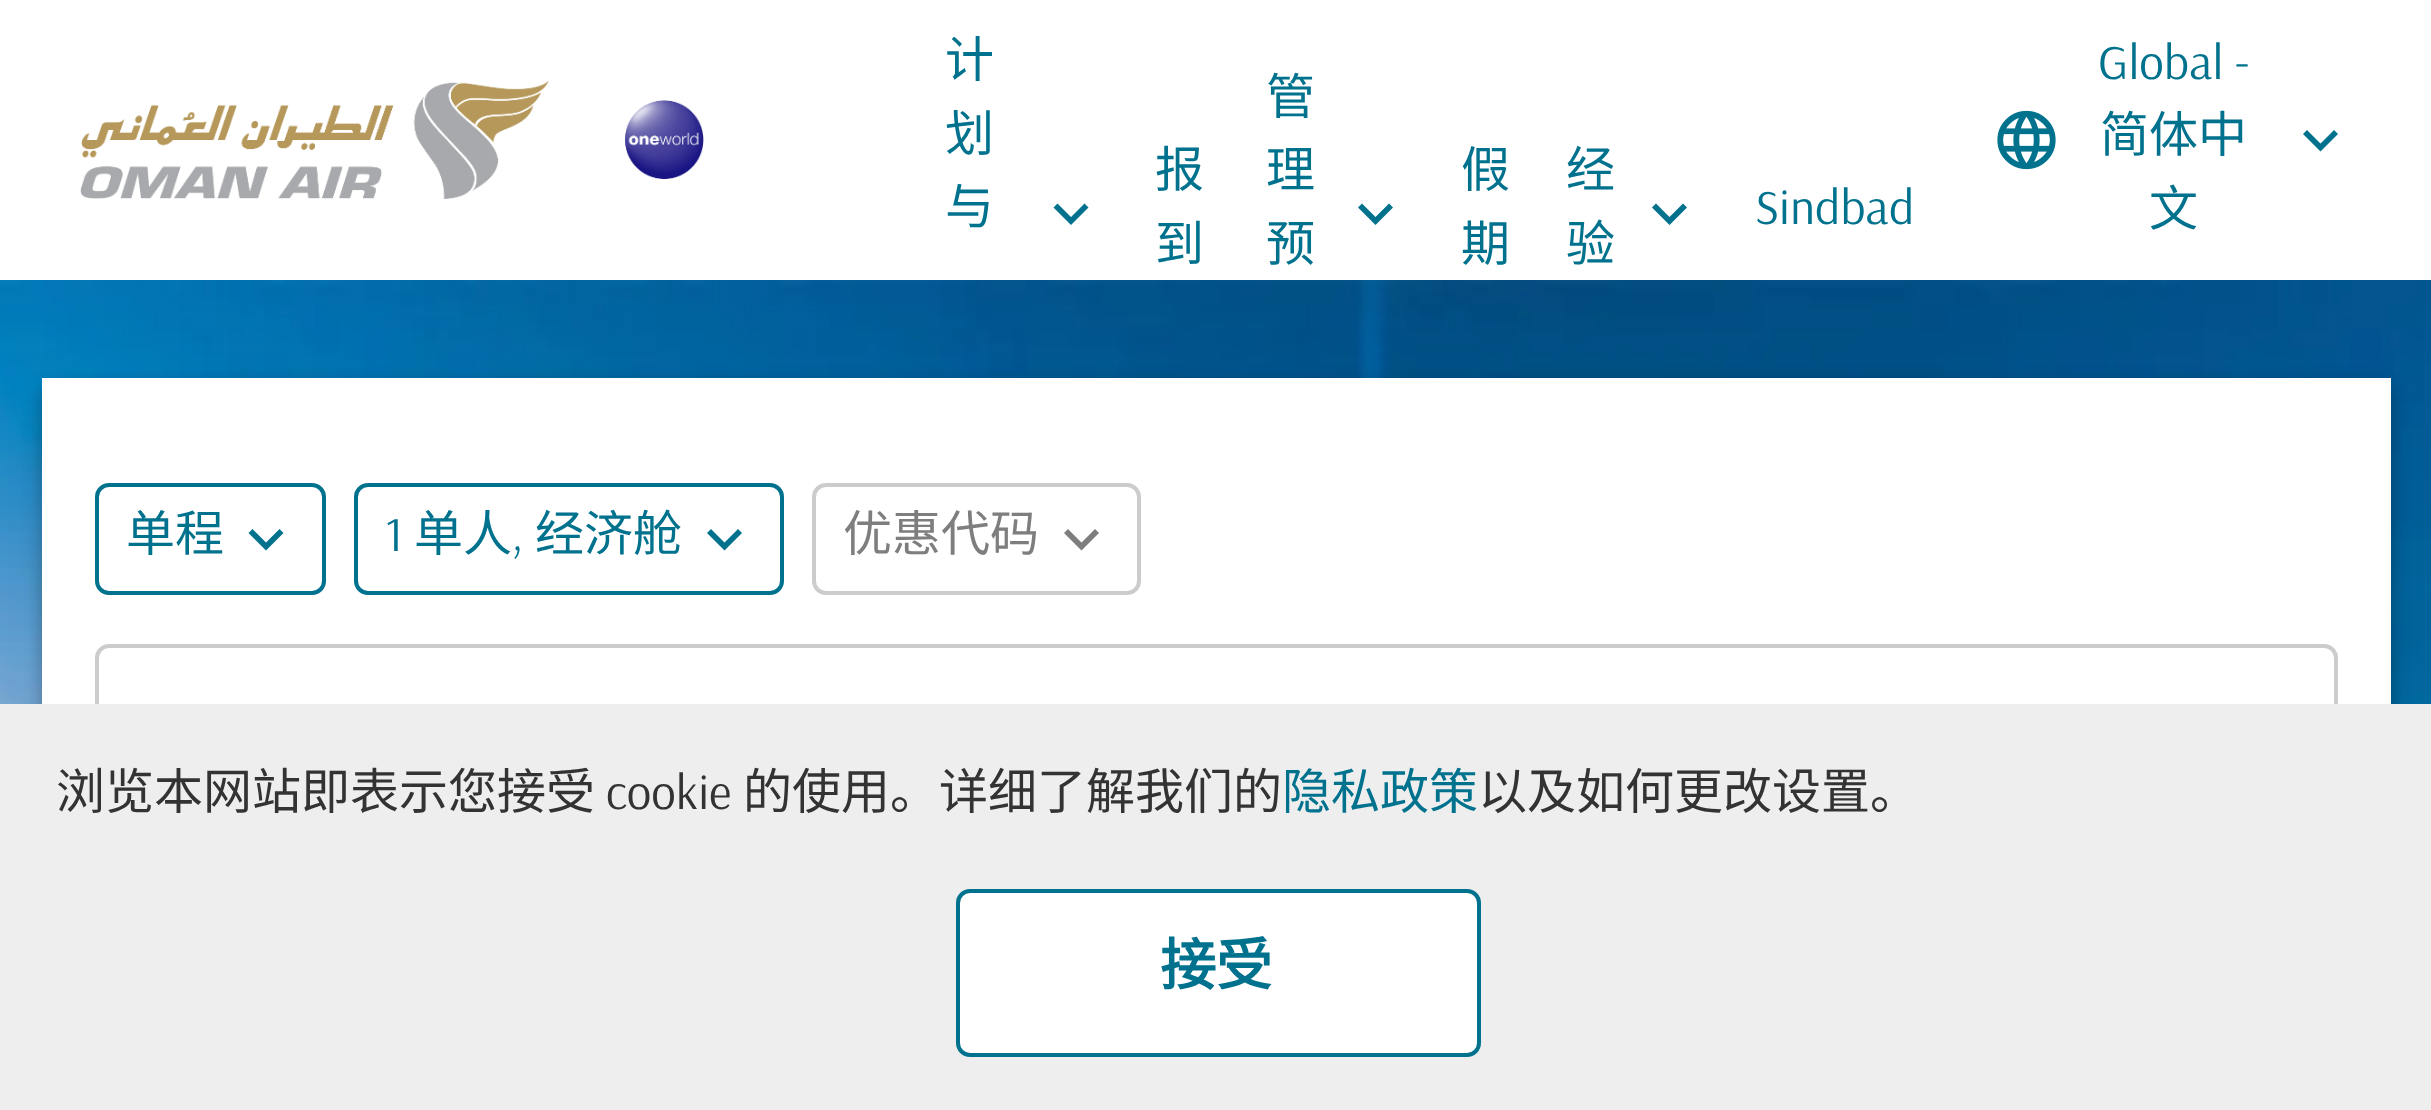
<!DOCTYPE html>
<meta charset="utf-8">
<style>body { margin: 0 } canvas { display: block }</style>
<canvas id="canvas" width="2431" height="1110"></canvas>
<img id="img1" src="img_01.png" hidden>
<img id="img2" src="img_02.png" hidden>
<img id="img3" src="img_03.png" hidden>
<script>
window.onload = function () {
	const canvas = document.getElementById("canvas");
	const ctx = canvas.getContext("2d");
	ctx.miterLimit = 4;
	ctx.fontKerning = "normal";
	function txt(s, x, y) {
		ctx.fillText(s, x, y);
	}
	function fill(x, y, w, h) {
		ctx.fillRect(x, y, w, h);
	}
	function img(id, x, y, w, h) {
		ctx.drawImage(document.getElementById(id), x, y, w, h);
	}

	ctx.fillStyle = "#FFFFFF";
	fill(0, 0, 2431, 1110);
	img("img1", 80, 80, 624, 119);
	ctx.fillStyle = "#00728E";
	ctx.beginPath();
	ctx.moveTo(1057.5, 203.5);
	ctx.lineTo(1071, 217);
	ctx.lineTo(1084.5, 203.5);
	ctx.lineTo(1088.5, 207.5);
	ctx.lineTo(1071, 225);
	ctx.lineTo(1053.5, 207.5);
	ctx.closePath();
	ctx.fill();
	ctx.beginPath();
	ctx.moveTo(1362, 203.5);
	ctx.lineTo(1375.5, 217);
	ctx.lineTo(1389, 203.5);
	ctx.lineTo(1393, 207.5);
	ctx.lineTo(1375.5, 225);
	ctx.lineTo(1358, 207.5);
	ctx.closePath();
	ctx.fill();
	ctx.beginPath();
	ctx.moveTo(1656, 203.5);
	ctx.lineTo(1669.5, 217);
	ctx.lineTo(1683, 203.5);
	ctx.lineTo(1687, 207.5);
	ctx.lineTo(1669.5, 225);
	ctx.lineTo(1652, 207.5);
	ctx.closePath();
	ctx.fill();
	img("img2", 1997, 110, 59, 60);
	ctx.beginPath();
	ctx.moveTo(2307, 130);
	ctx.lineTo(2320.5, 143.5);
	ctx.lineTo(2334, 130);
	ctx.lineTo(2338, 134);
	ctx.lineTo(2320.5, 151.5);
	ctx.lineTo(2303, 134);
	ctx.closePath();
	ctx.fill();
	img("img3", 0, 280, 2431, 424);
	ctx.fillStyle = "rgba(0, 0, 0, 0.3)";
	ctx.filter = "blur(9px)";
	ctx.beginPath();
	ctx.roundRect(42, 385, 2349, 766, 14);
	ctx.fill();
	ctx.filter = "none";
	ctx.fillStyle = "#FFFFFF";
	fill(42, 378, 2349, 326);
	ctx.beginPath();
	ctx.roundRect(97, 485, 227, 108, 12);
	ctx.strokeStyle = "#00728E";
	ctx.lineWidth = 4;
	ctx.stroke();
	ctx.fillStyle = "#00728E";
	ctx.beginPath();
	ctx.moveTo(279.5, 529);
	ctx.lineTo(283.5, 533);
	ctx.lineTo(266, 550.5);
	ctx.lineTo(248.5, 533);
	ctx.lineTo(252.5, 529);
	ctx.lineTo(266, 542.5);
	ctx.closePath();
	ctx.fill();
	ctx.beginPath();
	ctx.roundRect(356, 485, 426, 108, 12);
	ctx.stroke();
	ctx.beginPath();
	ctx.moveTo(738, 529);
	ctx.lineTo(742, 533);
	ctx.lineTo(724.5, 550.5);
	ctx.lineTo(707, 533);
	ctx.lineTo(711, 529);
	ctx.lineTo(724.5, 542.5);
	ctx.closePath();
	ctx.fill();
	ctx.beginPath();
	ctx.roundRect(814, 485, 325, 108, 12);
	ctx.strokeStyle = "#CCCCCC";
	ctx.stroke();
	ctx.fillStyle = "#7E7E7E";
	ctx.beginPath();
	ctx.moveTo(1095, 529);
	ctx.lineTo(1099, 533);
	ctx.lineTo(1081.5, 550.5);
	ctx.lineTo(1064, 533);
	ctx.lineTo(1068, 529);
	ctx.lineTo(1081.5, 542.5);
	ctx.closePath();
	ctx.fill();
	ctx.beginPath();
	ctx.roundRect(97, 646, 2239, 206, 12);
	ctx.stroke();
	ctx.fillStyle = "#EEEEEE";
	fill(0, 704, 2431, 406);
	ctx.fillStyle = "#FFFFFF";
	ctx.beginPath();
	ctx.roundRect(958, 891, 521, 164, 12);
	ctx.fill();
	ctx.strokeStyle = "#00728E";
	ctx.stroke();
	ctx.font = "49px Noto Sans CJK SC";
	ctx.fillStyle = "#00728E";
	txt("计", 945, 77);
	txt("划", 945, 151);
	txt("与", 945, 224);
	txt("报", 1155, 187);
	txt("到", 1155, 261);
	txt("管", 1266, 114);
	txt("理", 1266, 187);
	txt("预", 1266, 261);
	txt("假", 1461, 187);
	txt("期", 1461, 261);
	txt("经", 1566, 187);
	txt("验", 1566, 261);
	ctx.font = "49px Arsenal";
	txt("Sindbad", 1755, 224);
	txt("Global -", 2098, 79);
	ctx.font = "49px Noto Sans CJK SC";
	txt("简体中", 2100, 152);
	txt("文", 2149, 226);
	txt("单程", 126, 551);
	ctx.font = "49px Arsenal";
	txt("1", 385, 551);
	ctx.font = "49px Noto Sans CJK SC";
	txt("单人", 414, 551);
	txt("经济舱", 535, 551);
	ctx.font = "49px Arsenal";
	txt(",", 512, 551);
	ctx.font = "49px Noto Sans CJK SC";
	ctx.fillStyle = "#7E7E7E";
	txt("优惠代码", 843, 551);
	ctx.fillStyle = "#333333";
	txt("浏览本网站即表示您接受", 56, 809);
	ctx.font = "49px Arsenal";
	txt("cookie", 606, 809);
	ctx.font = "49px Noto Sans CJK SC";
	txt("的使用。详细了解我们的", 743, 809);
	ctx.fillStyle = "#00728E";
	txt("隐私政策", 1282, 809);
	ctx.fillStyle = "#333333";
	txt("以及如何更改设置。", 1478, 809);
	ctx.font = "bold 56px Noto Sans CJK SC";
	ctx.fillStyle = "#00728E";
	txt("接受", 1160, 985);
};
</script>
